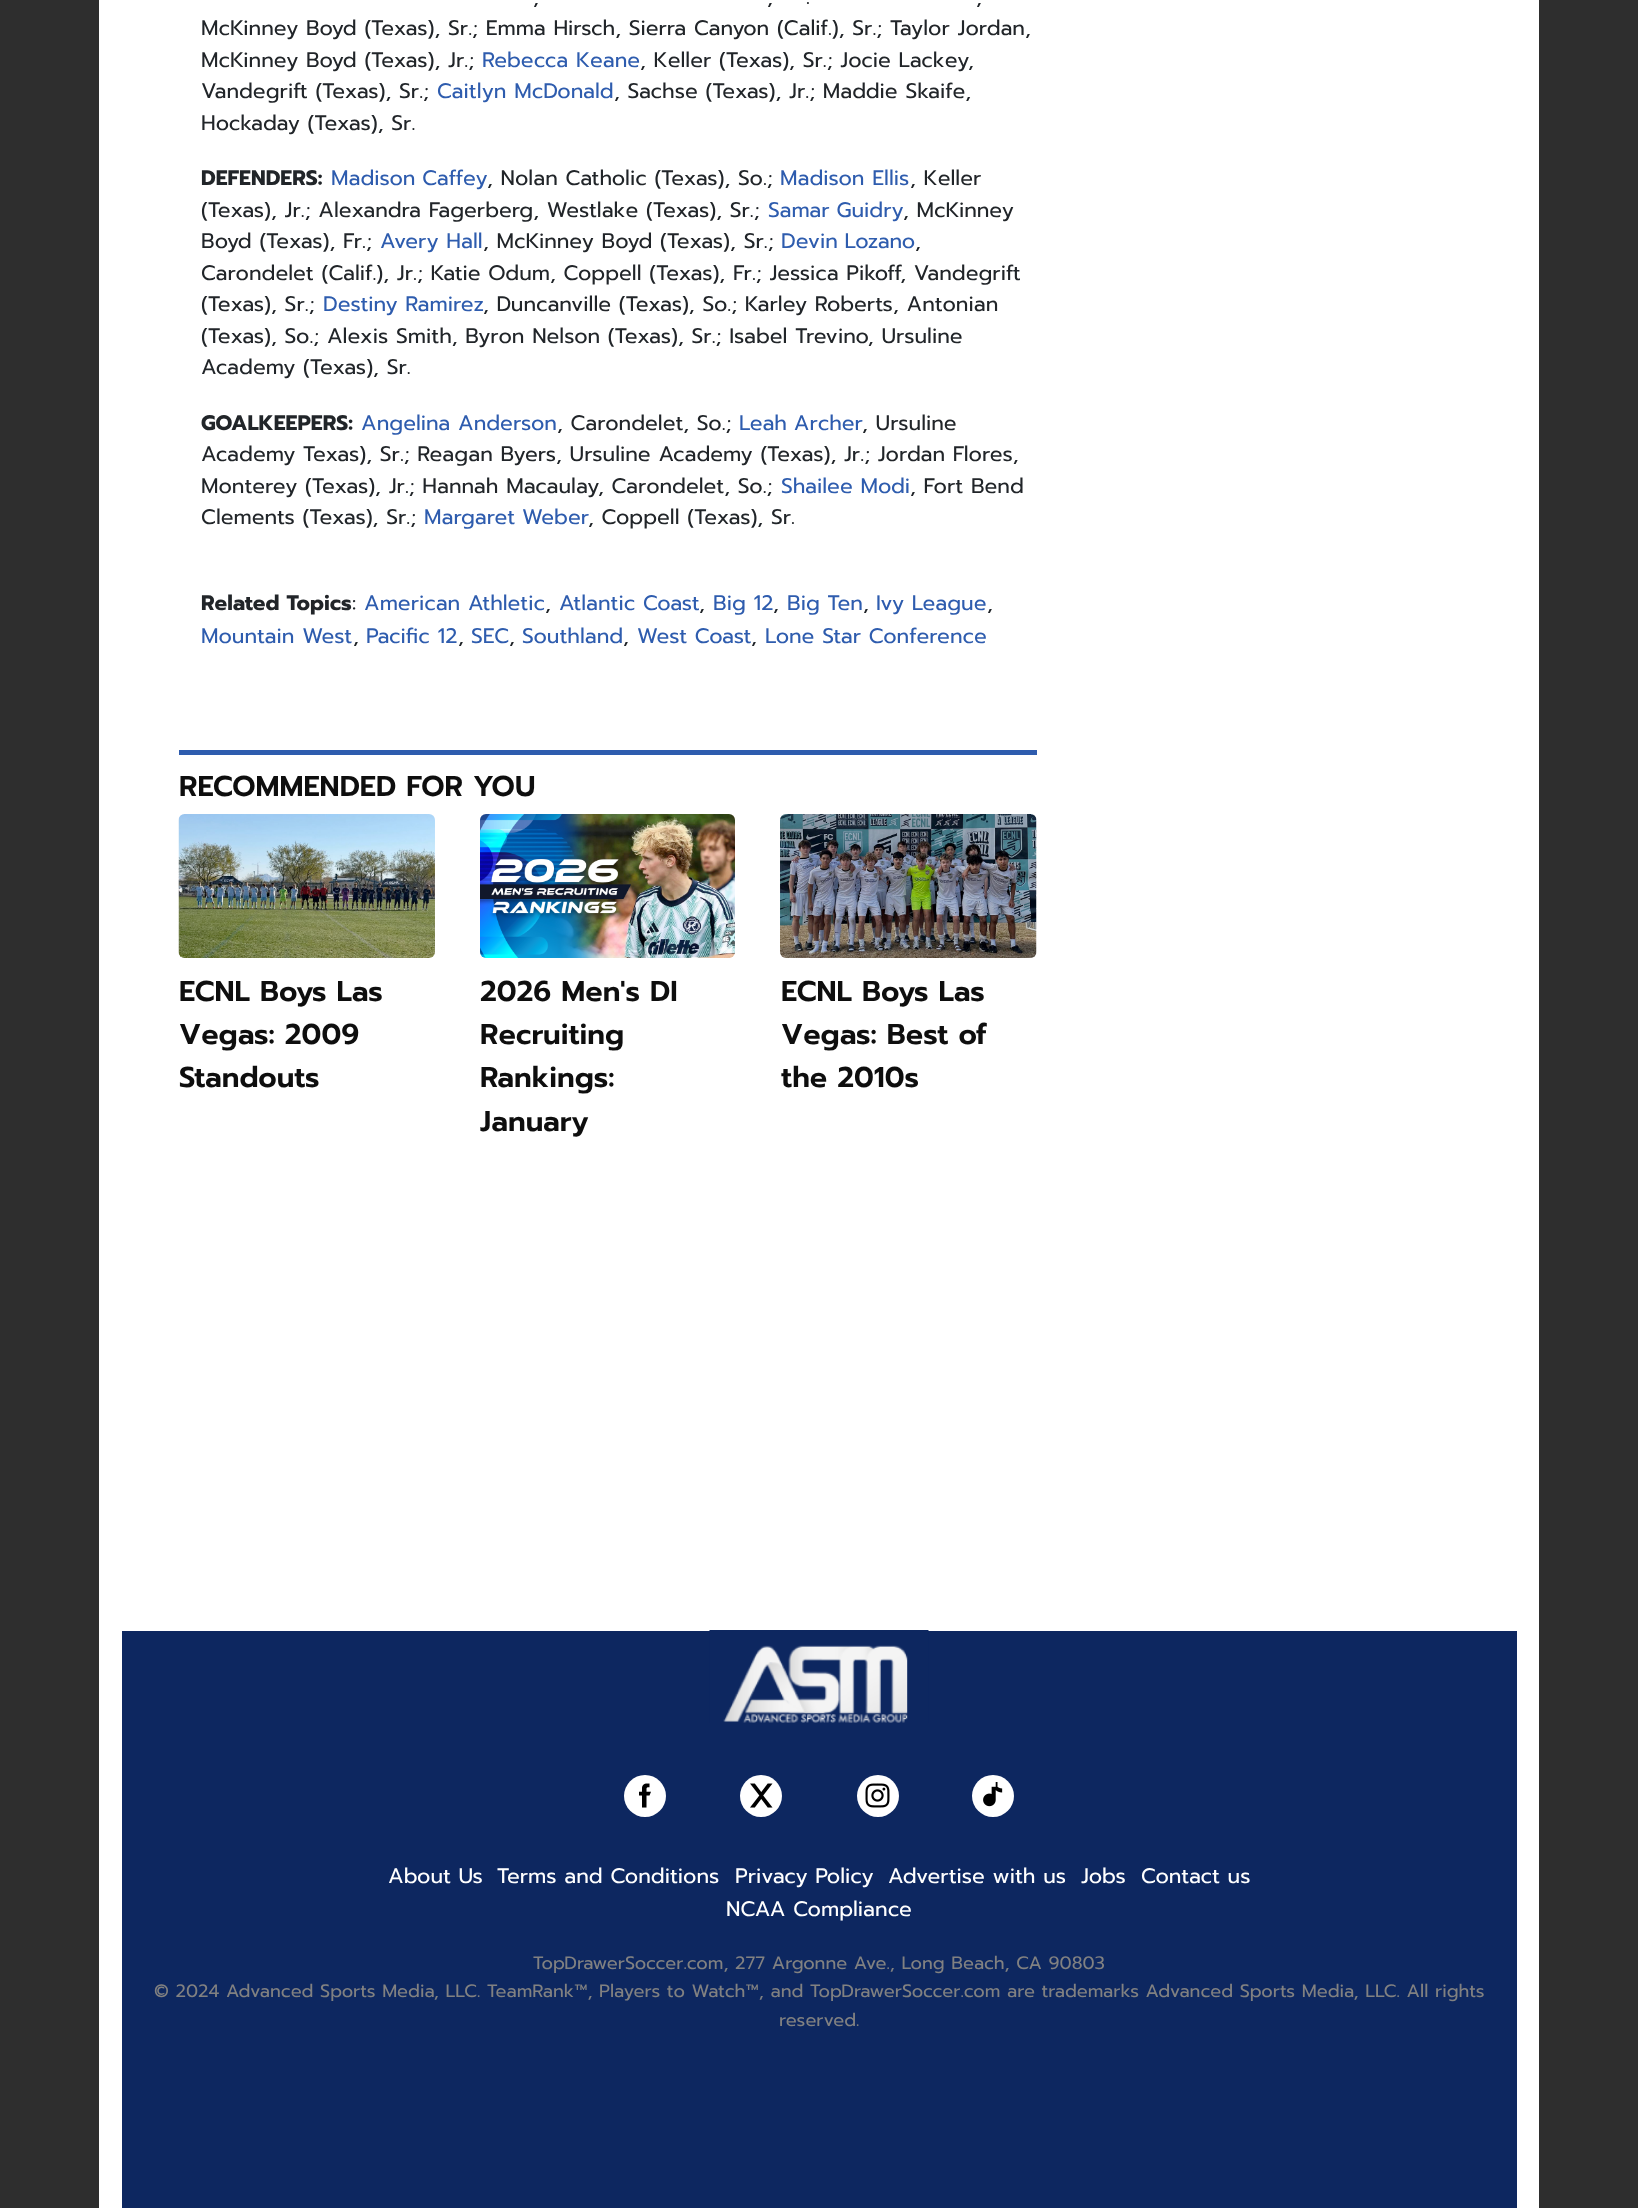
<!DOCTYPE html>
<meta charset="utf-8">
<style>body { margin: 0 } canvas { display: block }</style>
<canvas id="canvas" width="1638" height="2208"></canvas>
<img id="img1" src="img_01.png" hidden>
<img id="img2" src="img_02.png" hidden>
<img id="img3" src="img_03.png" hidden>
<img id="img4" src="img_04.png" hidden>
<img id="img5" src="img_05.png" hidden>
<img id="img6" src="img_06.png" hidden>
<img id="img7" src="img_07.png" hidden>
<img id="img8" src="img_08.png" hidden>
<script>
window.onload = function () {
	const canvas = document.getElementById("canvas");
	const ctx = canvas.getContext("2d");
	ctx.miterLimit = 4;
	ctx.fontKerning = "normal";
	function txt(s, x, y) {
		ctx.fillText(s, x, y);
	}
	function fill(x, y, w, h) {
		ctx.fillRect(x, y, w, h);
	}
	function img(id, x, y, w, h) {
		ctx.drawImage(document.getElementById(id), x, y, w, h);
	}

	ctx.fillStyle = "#2E2E2E";
	fill(0, 0, 1638, 2208);
	ctx.fillStyle = "#FFFFFF";
	fill(99, 0, 1440, 2208);
	ctx.fillStyle = "#2E5CAE";
	fill(179, 750, 858, 5);
	img("img1", 178, 814, 257, 144);
	img("img2", 480, 814, 255, 144);
	img("img3", 780, 814, 257, 144);
	ctx.fillStyle = "#0D2760";
	fill(122, 1631, 1395, 577);
	img("img4", 709, 1630, 220, 93);
	ctx.fillStyle = "#FFFFFF";
	ctx.beginPath();
	ctx.arc(645, 1796, 21, 0, Math.PI * 2);
	ctx.fill();
	img("img5", 639, 1783, 12, 25);
	ctx.beginPath();
	ctx.arc(761, 1796, 21, 0, Math.PI * 2);
	ctx.fill();
	img("img6", 750, 1783, 23, 25);
	ctx.beginPath();
	ctx.arc(878, 1796, 21, 0, Math.PI * 2);
	ctx.fill();
	img("img7", 865, 1783, 25, 25);
	ctx.beginPath();
	ctx.arc(993, 1796, 21, 0, Math.PI * 2);
	ctx.fill();
	img("img8", 983, 1782, 20, 25);
	ctx.font = "21px Prompt";
	ctx.fillStyle = "#212529";
	txt(",", 533, 4);
	txt(",", 767, 4);
	txt(".", 806, 4);
	txt(",", 976, 4);
	txt("McKinney Boyd (Texas), Sr.; Emma Hirsch, Sierra Canyon (Calif.), Sr.; Taylor Jordan,", 201, 35);
	txt("McKinney Boyd (Texas), Jr.;", 201, 67);
	ctx.fillStyle = "#2E5CAE";
	txt("Rebecca Keane", 482, 67);
	ctx.fillStyle = "#212529";
	txt(", Keller (Texas), Sr.; Jocie Lackey,", 640, 67);
	txt("Vandegrift (Texas), Sr.;", 201, 98);
	ctx.fillStyle = "#2E5CAE";
	txt("Caitlyn McDonald", 437, 98);
	ctx.fillStyle = "#212529";
	txt(", Sachse (Texas), Jr.; Maddie Skaife,", 614, 98);
	txt("Hockaday (Texas), Sr.", 201, 130);
	ctx.font = "bold 21px Prompt";
	txt("DEFENDERS:", 201, 185);
	ctx.wordSpacing = "-1px";
	ctx.font = "21px Prompt";
	ctx.fillStyle = "#2E5CAE";
	txt("Madison Caffey", 331, 185);
	ctx.wordSpacing = "0px";
	ctx.fillStyle = "#212529";
	txt(", Nolan Catholic (Texas), So.;", 487, 185);
	ctx.fillStyle = "#2E5CAE";
	txt("Madison Ellis", 780, 185);
	ctx.fillStyle = "#212529";
	txt(", Keller", 910, 185);
	txt("(Texas), Jr.; Alexandra Fagerberg, Westlake (Texas), Sr.;", 201, 217);
	ctx.wordSpacing = "-1px";
	ctx.fillStyle = "#2E5CAE";
	txt("Samar Guidry", 768, 217);
	ctx.wordSpacing = "0px";
	ctx.fillStyle = "#212529";
	txt(", McKinney", 903, 217);
	txt("Boyd (Texas), Fr.;", 201, 248);
	ctx.fillStyle = "#2E5CAE";
	txt("Avery Hall", 380, 248);
	ctx.fillStyle = "#212529";
	txt(", McKinney Boyd (Texas), Sr.;", 483, 248);
	ctx.wordSpacing = "-1px";
	ctx.fillStyle = "#2E5CAE";
	txt("Devin Lozano", 781, 248);
	ctx.wordSpacing = "0px";
	ctx.fillStyle = "#212529";
	txt(",", 915, 248);
	txt("Carondelet (Calif.), Jr.; Katie Odum, Coppell (Texas), Fr.; Jessica Pikoff, Vandegrift", 201, 280);
	txt("(Texas), Sr.;", 201, 311);
	ctx.fillStyle = "#2E5CAE";
	txt("Destiny Ramirez", 323, 311);
	ctx.fillStyle = "#212529";
	txt(", Duncanville (Texas), So.; Karley Roberts, Antonian", 483, 311);
	txt("(Texas), So.; Alexis Smith, Byron Nelson (Texas), Sr.; Isabel Trevino, Ursuline", 201, 343);
	txt("Academy (Texas), Sr.", 201, 374);
	ctx.font = "bold 21px Prompt";
	txt("GOALKEEPERS:", 201, 430);
	ctx.font = "21px Prompt";
	ctx.fillStyle = "#2E5CAE";
	txt("Angelina Anderson", 361, 430);
	ctx.fillStyle = "#212529";
	txt(", Carondelet, So.;", 557, 430);
	ctx.wordSpacing = "-1px";
	ctx.fillStyle = "#2E5CAE";
	txt("Leah Archer", 739, 430);
	ctx.wordSpacing = "0px";
	ctx.fillStyle = "#212529";
	txt(", Ursuline", 862, 430);
	txt("Academy Texas), Sr.; Reagan Byers, Ursuline Academy (Texas), Jr.; Jordan Flores,", 201, 461);
	txt("Monterey (Texas), Jr.; Hannah Macaulay, Carondelet, So.;", 201, 493);
	ctx.fillStyle = "#2E5CAE";
	txt("Shailee Modi", 781, 493);
	ctx.fillStyle = "#212529";
	txt(", Fort Bend", 910, 493);
	txt("Clements (Texas), Sr.;", 201, 524);
	ctx.wordSpacing = "-1px";
	ctx.fillStyle = "#2E5CAE";
	txt("Margaret Weber", 424, 524);
	ctx.wordSpacing = "0px";
	ctx.fillStyle = "#212529";
	txt(", Coppell (Texas), Sr.", 588, 524);
	ctx.font = "bold 21px Prompt";
	txt("Related Topics", 201, 610);
	ctx.font = "21px Prompt";
	txt(":", 352, 610);
	ctx.fillStyle = "#2E5CAE";
	txt("American Athletic", 364, 610);
	txt("Atlantic Coast", 559, 610);
	txt("Big 12", 713, 610);
	txt("Big Ten", 787, 610);
	txt("Ivy League", 876, 610);
	ctx.fillStyle = "#212529";
	txt(",", 545, 610);
	txt(",", 699, 610);
	txt(",", 773, 610);
	txt(",", 863, 610);
	txt(",", 987, 610);
	ctx.fillStyle = "#2E5CAE";
	txt("Mountain West", 201, 643);
	ctx.fillStyle = "#212529";
	txt(",", 353, 643);
	ctx.fillStyle = "#2E5CAE";
	txt("Pacific 12", 366, 643);
	ctx.fillStyle = "#212529";
	txt(",", 458, 643);
	ctx.fillStyle = "#2E5CAE";
	txt("SEC", 471, 643);
	ctx.fillStyle = "#212529";
	txt(",", 509, 643);
	ctx.fillStyle = "#2E5CAE";
	txt("Southland", 522, 643);
	ctx.fillStyle = "#212529";
	txt(",", 623, 643);
	ctx.fillStyle = "#2E5CAE";
	txt("West Coast", 637, 643);
	ctx.fillStyle = "#212529";
	txt(",", 751, 643);
	ctx.fillStyle = "#2E5CAE";
	txt("Lone Star Conference", 765, 643);
	ctx.font = "600 28.75px Prompt";
	ctx.fillStyle = "#0E0E0E";
	txt("RECOMMENDED FOR YOU", 179, 796);
	txt("ECNL Boys Las", 179, 1001);
	txt("Vegas: 2009", 179, 1044);
	txt("Standouts", 179, 1087);
	txt("2026 Men's DI", 480, 1001);
	txt("Recruiting", 480, 1044);
	txt("Rankings:", 480, 1087);
	txt("January", 480, 1131);
	txt("ECNL Boys Las", 781, 1001);
	txt("Vegas: Best of", 781, 1044);
	txt("the 2010s", 781, 1087);
	ctx.font = "21px Prompt";
	ctx.fillStyle = "#FFFFFF";
	txt("About Us", 388, 1883);
	txt("Terms and Conditions", 497, 1883);
	txt("Privacy Policy", 735, 1883);
	txt("Advertise with us", 888, 1883);
	txt("Jobs", 1081, 1883);
	txt("Contact us", 1141, 1883);
	txt("NCAA Compliance", 726, 1916);
	ctx.font = "18px Prompt";
	ctx.fillStyle = "#818181";
	txt("TopDrawerSoccer.com, 277 Argonne Ave., Long Beach, CA 90803", 533, 1969);
	txt("© 2024 Advanced Sports Media, LLC. TeamRank™, Players to Watch™, and TopDrawerSoccer.com are trademarks Advanced Sports Media, LLC. All rights", 154, 1997);
	txt("reserved.", 779, 2026);
};
</script>
